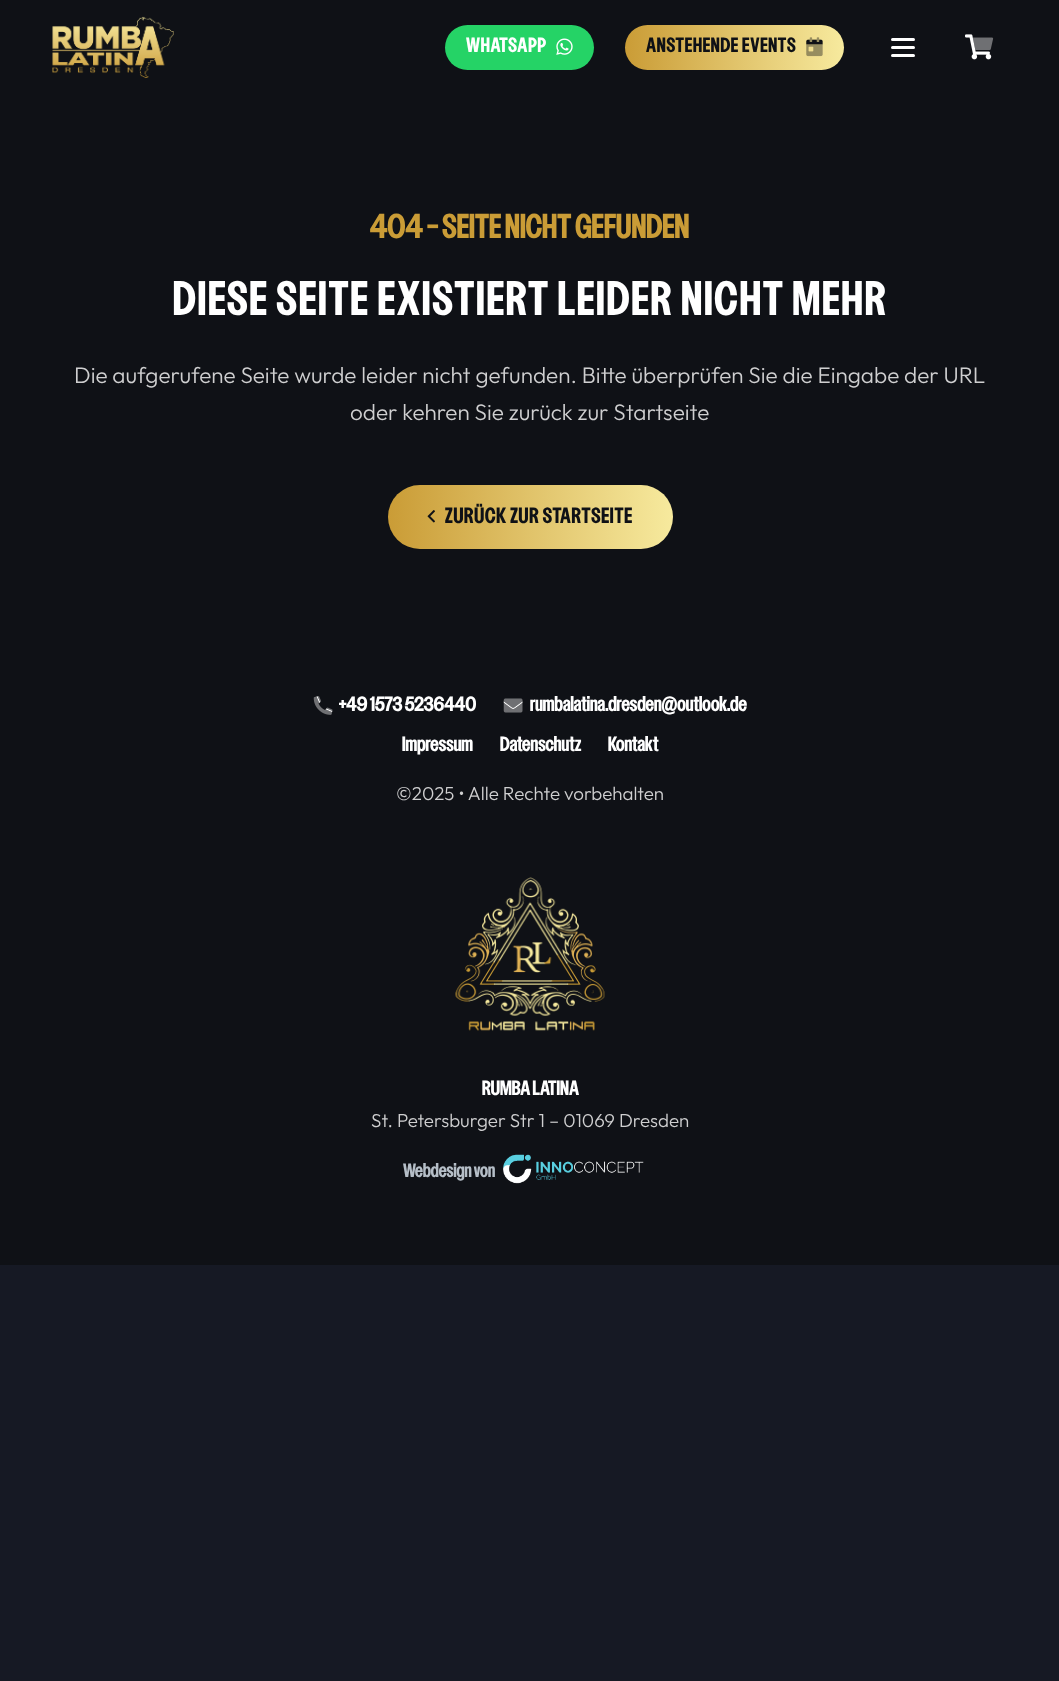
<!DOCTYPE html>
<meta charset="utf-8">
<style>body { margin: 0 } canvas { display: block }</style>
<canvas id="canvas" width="1059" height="1681"></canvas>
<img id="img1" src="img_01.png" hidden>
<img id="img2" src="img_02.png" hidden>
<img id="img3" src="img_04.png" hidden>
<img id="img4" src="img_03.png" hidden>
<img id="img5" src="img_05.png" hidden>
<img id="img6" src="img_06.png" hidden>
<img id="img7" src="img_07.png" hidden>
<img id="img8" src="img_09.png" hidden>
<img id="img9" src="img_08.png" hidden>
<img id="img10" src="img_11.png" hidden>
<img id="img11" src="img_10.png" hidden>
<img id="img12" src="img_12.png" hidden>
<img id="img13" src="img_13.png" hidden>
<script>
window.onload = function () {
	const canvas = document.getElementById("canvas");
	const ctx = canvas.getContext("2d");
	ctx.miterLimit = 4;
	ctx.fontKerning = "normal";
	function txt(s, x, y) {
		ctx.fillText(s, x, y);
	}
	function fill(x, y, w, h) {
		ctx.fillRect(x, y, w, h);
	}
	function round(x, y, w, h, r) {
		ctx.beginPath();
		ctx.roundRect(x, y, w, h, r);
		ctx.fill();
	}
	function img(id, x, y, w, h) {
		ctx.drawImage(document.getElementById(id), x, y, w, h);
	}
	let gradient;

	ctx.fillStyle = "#161924";
	fill(0, 0, 1059, 1681);
	ctx.fillStyle = "#0F1116";
	fill(0, 0, 1059, 1265);
	img("img1", 52, 16, 122, 63);
	ctx.fillStyle = "#25D366";
	round(445, 25, 149, 45, 22.5);
	img("img2", 556, 38, 17, 17);
	gradient = ctx.createLinearGradient(625, 48, 844, 47);
	gradient.addColorStop(0, "#CA9C36");
	gradient.addColorStop(1, "#F7EA9E");
	ctx.fillStyle = gradient;
	round(625, 25, 219, 45, 22.5);
	img("img3", 806, 39, 17, 6);
	img("img4", 806, 37, 17, 20);
	ctx.fillStyle = "#FFFFFF";
	round(891, 46, 24, 3, 1.5);
	round(891, 38, 24, 3, 1.5);
	round(891, 54, 24, 3, 1.5);
	img("img5", 965, 34, 27, 26);
	img("img6", 973, 37, 21, 13);
	gradient = ctx.createLinearGradient(388, 517, 673, 517);
	gradient.addColorStop(0, "#CA9C36");
	gradient.addColorStop(1, "#F7EA9E");
	ctx.fillStyle = gradient;
	round(388, 485, 285, 64, 32);
	img("img7", 427, 510, 8, 13);
	img("img8", 316, 696, 17, 16);
	img("img9", 313, 696, 20, 19);
	img("img10", 503, 701, 20, 8);
	img("img11", 503, 698, 20, 15);
	img("img12", 455, 877, 150, 154);
	img("img13", 503, 1154, 141, 30);
	ctx.letterSpacing = "0.75px";
	ctx.font = "bold 18.75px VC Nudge";
	ctx.fillStyle = "#FFFFFF";
	txt("WHATSAPP", 466, 52);
	ctx.fillStyle = "#0F1116";
	txt("ANSTEHENDE EVENTS", 646, 52);
	ctx.letterSpacing = "0px";
	ctx.font = "bold 31.25px VC Nudge";
	ctx.fillStyle = "#CA9C36";
	txt("404 – SEITE NICHT GEFUNDEN", 370, 238);
	ctx.letterSpacing = "2.2px";
	ctx.font = "bold 43.75px VC Nudge";
	ctx.fillStyle = "#FFFFFF";
	txt("DIESE SEITE EXISTIERT LEIDER NICHT MEHR", 173, 315);
	ctx.letterSpacing = "0px";
	ctx.font = "100 22.5px Outfit";
	ctx.fillStyle = "#CFCFD0";
	txt("Die aufgerufene Seite wurde leider nicht gefunden. Bitte überprüfen Sie die Eingabe der URL", 74, 383);
	txt("oder kehren Sie zurück zur Startseite", 350, 420);
	ctx.letterSpacing = "0.8px";
	ctx.font = "bold 20px VC Nudge";
	ctx.fillStyle = "#0F1116";
	txt("ZURÜCK ZUR STARTSEITE", 445, 523);
	ctx.letterSpacing = "0px";
	ctx.font = "bold 18.75px VC Nudge";
	ctx.fillStyle = "#FFFFFF";
	txt("+49 1573 5236440", 339, 711);
	txt("rumbalatina.dresden@outlook.de", 530, 711);
	txt("Impressum", 402, 751);
	txt("Datenschutz", 500, 751);
	txt("Kontakt", 608, 751);
	ctx.font = "100 18.75px Outfit";
	ctx.fillStyle = "#CFCFD0";
	txt("©2025 • Alle Rechte vorbehalten", 396, 800);
	ctx.font = "bold 18.75px VC Nudge";
	ctx.fillStyle = "#FFFFFF";
	txt("RUMBA LATINA", 482, 1095);
	ctx.font = "100 18.75px Outfit";
	ctx.fillStyle = "#CFCFD0";
	txt("St. Petersburger Str 1 – 01069 Dresden", 371, 1127);
	ctx.font = "bold 17.5px VC Nudge";
	ctx.fillStyle = "#B5BEC7";
	txt("Webdesign von", 403, 1177);
};
</script>
